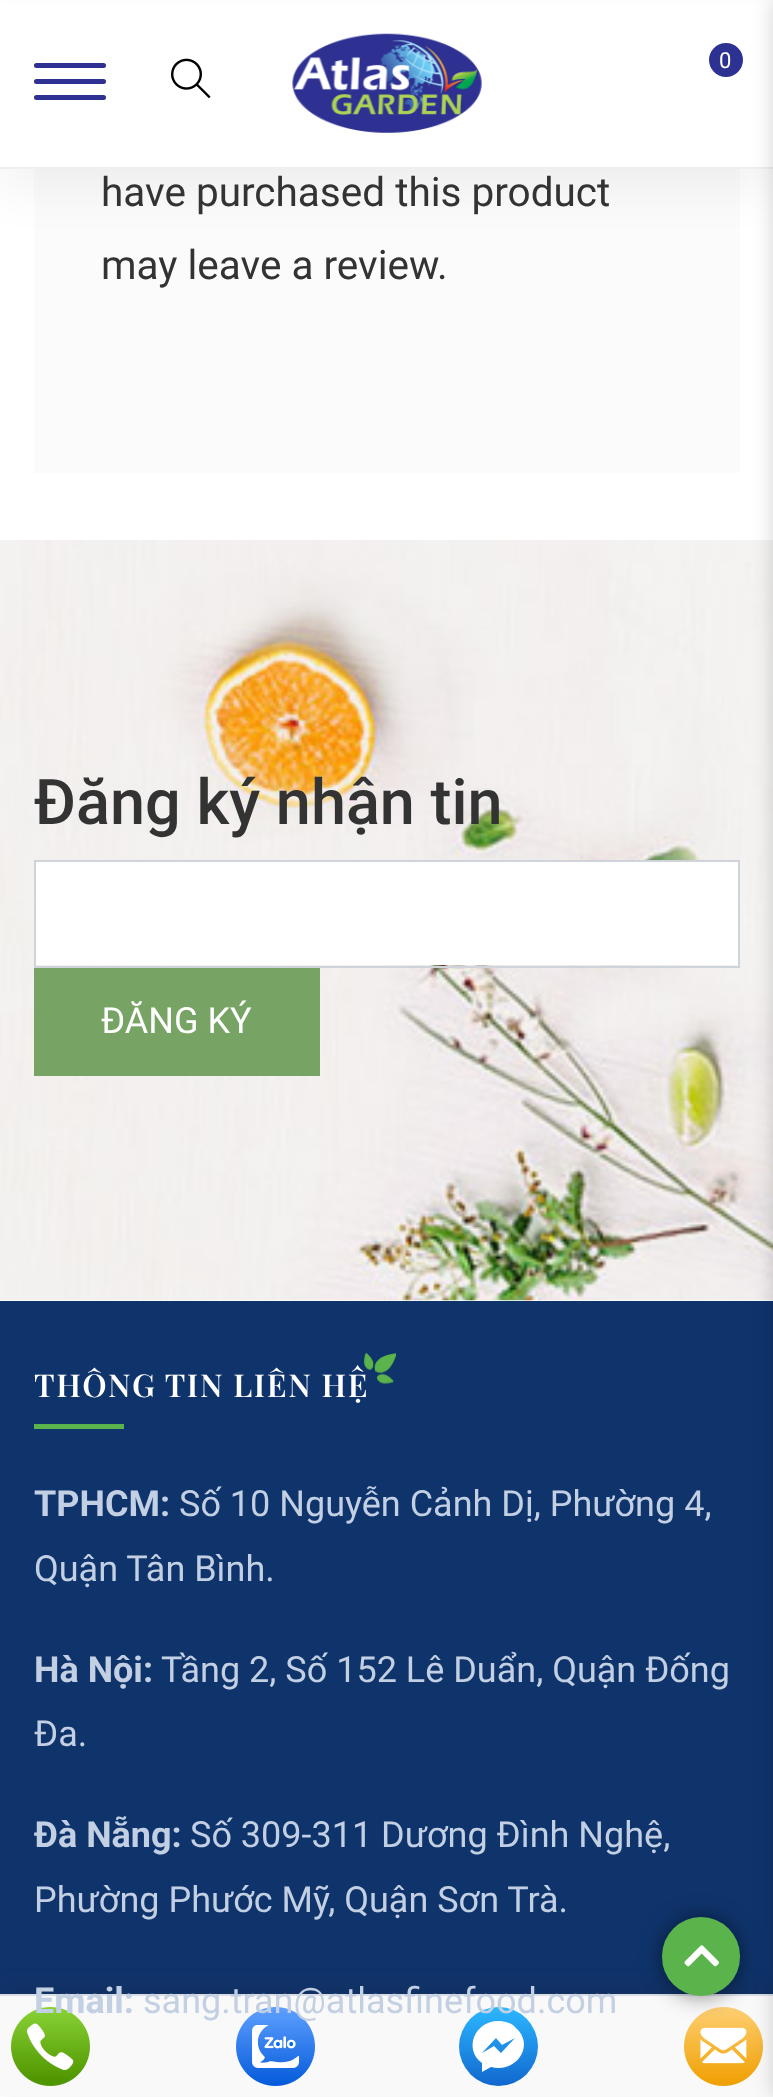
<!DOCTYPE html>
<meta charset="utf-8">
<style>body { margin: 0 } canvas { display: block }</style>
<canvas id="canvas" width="773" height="2097"></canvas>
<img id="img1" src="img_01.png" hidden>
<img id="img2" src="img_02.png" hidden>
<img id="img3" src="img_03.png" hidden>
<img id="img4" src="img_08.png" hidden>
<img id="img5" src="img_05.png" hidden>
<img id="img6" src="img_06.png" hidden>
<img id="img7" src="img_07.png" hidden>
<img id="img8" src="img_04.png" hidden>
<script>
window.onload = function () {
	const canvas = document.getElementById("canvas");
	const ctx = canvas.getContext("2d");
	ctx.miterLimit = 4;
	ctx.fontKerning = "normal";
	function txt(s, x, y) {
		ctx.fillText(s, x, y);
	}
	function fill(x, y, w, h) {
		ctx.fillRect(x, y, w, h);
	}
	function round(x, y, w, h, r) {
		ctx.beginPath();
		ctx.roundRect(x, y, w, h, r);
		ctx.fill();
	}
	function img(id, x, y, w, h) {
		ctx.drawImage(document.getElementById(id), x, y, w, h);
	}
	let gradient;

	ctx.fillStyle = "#FFFFFF";
	fill(0, 0, 773, 2097);
	ctx.fillStyle = "#FBFBFB";
	fill(34, 169, 706, 304);
	ctx.fillStyle = "rgba(0, 0, 0, 0.05)";
	ctx.filter = "blur(22.5px)";
	ctx.beginPath();
	ctx.rect(0, 23, 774, 168);
	ctx.fill();
	ctx.filter = "none";
	ctx.fillStyle = "#FFFFFF";
	fill(0, 4, 773, 163);
	ctx.fillStyle = "#EFEFEF";
	fill(0, 167, 773, 2);
	ctx.fillStyle = "#2D3192";
	round(34, 63, 72, 5, 2.5);
	round(34, 79, 72, 5, 2.5);
	round(34, 95, 72, 5, 2.5);
	img("img1", 171, 58, 40, 41);
	img("img2", 292, 33, 190, 100);
	ctx.beginPath();
	ctx.arc(726, 60, 17, 0, Math.PI * 2);
	ctx.fill();
	img("img3", 0, 540, 773, 761);
	ctx.fillStyle = "#FFFFFF";
	fill(36, 862, 702, 103);
	ctx.strokeStyle = "#CED4DA";
	ctx.lineWidth = 2;
	ctx.strokeRect(35, 861, 704, 106);
	ctx.fillStyle = "#77A464";
	fill(34, 968, 286, 108);
	ctx.fillStyle = "#0F346C";
	fill(0, 1301, 773, 693);
	ctx.fillStyle = "#5BB44B";
	fill(34, 1424, 90, 5);
	ctx.fillStyle = "rgba(29, 36, 62, 0.2)";
	ctx.filter = "blur(9px)";
	ctx.beginPath();
	ctx.rect(0, 1985, 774, 103);
	ctx.fill();
	ctx.filter = "none";
	ctx.fillStyle = "#F9F9F9";
	fill(0, 1996, 773, 100);
	ctx.fillStyle = "#D8DDE6";
	fill(0, 1994, 773, 2);
	img("img4", 684, 2007, 79, 79);
	ctx.fillStyle = "rgba(0, 0, 0, 0.49)";
	ctx.filter = "blur(11px)";
	ctx.beginPath();
	ctx.roundRect(662, 1917, 78, 79, 39);
	ctx.fill();
	ctx.filter = "none";
	ctx.fillStyle = "#5BB44B";
	round(662, 1917, 78, 79, 39);
	img("img5", 684, 1945, 35, 22);
	img("img6", 11, 2007, 79, 79);
	img("img7", 236, 2007, 79, 79);
	gradient = ctx.createLinearGradient(498, 2085, 498, 2008);
	gradient.addColorStop(0, "#1168CF");
	gradient.addColorStop(1, "#2CB7FF");
	ctx.fillStyle = gradient;
	ctx.beginPath();
	ctx.arc(498.5, 2046.5, 39.5, 0, Math.PI * 2);
	ctx.fill();
	ctx.fillStyle = "#FFFFFF";
	ctx.beginPath();
	ctx.moveTo(498, 2021);
	ctx.bezierCurveTo(475, 2021, 463, 2049, 482, 2063);
	ctx.lineTo(482, 2072);
	ctx.lineTo(491, 2067);
	ctx.bezierCurveTo(515, 2074, 536, 2046, 516, 2028);
	ctx.bezierCurveTo(512, 2023, 505, 2021, 498, 2021);
	ctx.closePath();
	ctx.moveTo(501, 2053);
	ctx.lineTo(494, 2046);
	ctx.lineTo(482, 2053);
	ctx.lineTo(496, 2038);
	ctx.lineTo(502, 2045);
	ctx.lineTo(515, 2038);
	ctx.closePath();
	ctx.fill("evenodd");
	ctx.fillStyle = "rgba(0, 0, 0, 0.19)";
	ctx.filter = "blur(10px)";
	ctx.beginPath();
	ctx.rect(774, 0, 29, 2097);
	ctx.fill();
	ctx.filter = "none";
	ctx.font = "22px Roboto";
	ctx.fillStyle = "#FFFFFF";
	txt("0", 719, 68);
	ctx.font = "40.5px Roboto";
	ctx.fillStyle = "#333333";
	txt("have purchased this product", 101, 206);
	txt("may leave a review.", 101, 279);
	ctx.font = "500 63px Roboto";
	txt("Đăng ký nhận tin", 34, 824);
	ctx.font = "36px Roboto";
	ctx.fillStyle = "#FFFFFF";
	txt("ĐĂNG KÝ", 101, 1033);
	ctx.letterSpacing = "1.6px";
	ctx.font = "600 31.5px Playfair Display";
	txt("THÔNG TIN LIÊN HỆ", 34, 1397);
	img("img8", 363, 1353, 33, 31);
	ctx.letterSpacing = "0px";
	ctx.font = "bold 36px Roboto";
	ctx.fillStyle = "#C3CFE2";
	txt("TPHCM:", 34, 1516);
	ctx.font = "36px Roboto";
	txt("Số 10 Nguyễn Cảnh Dị, Phường 4,", 179, 1516);
	txt("Quận Tân Bình.", 34, 1581);
	ctx.font = "bold 36px Roboto";
	txt("Hà Nội:", 34, 1682);
	ctx.font = "36px Roboto";
	txt("Tầng 2, Số 152 Lê Duẩn, Quận Đống", 161, 1682);
	txt("Đa.", 34, 1746);
	ctx.font = "bold 36px Roboto";
	txt("Đà Nẵng:", 34, 1847);
	ctx.font = "36px Roboto";
	txt("Số 309-311 Dương Đình Nghệ,", 190, 1847);
	txt("Phường Phước Mỹ, Quận Sơn Trà.", 34, 1912);
	ctx.font = "bold 36px Roboto";
	txt("Email:", 34, 2013);
	ctx.font = "36px Roboto";
	txt("sang.tran@atlasfinefood.com", 143, 2013);
};
</script>
